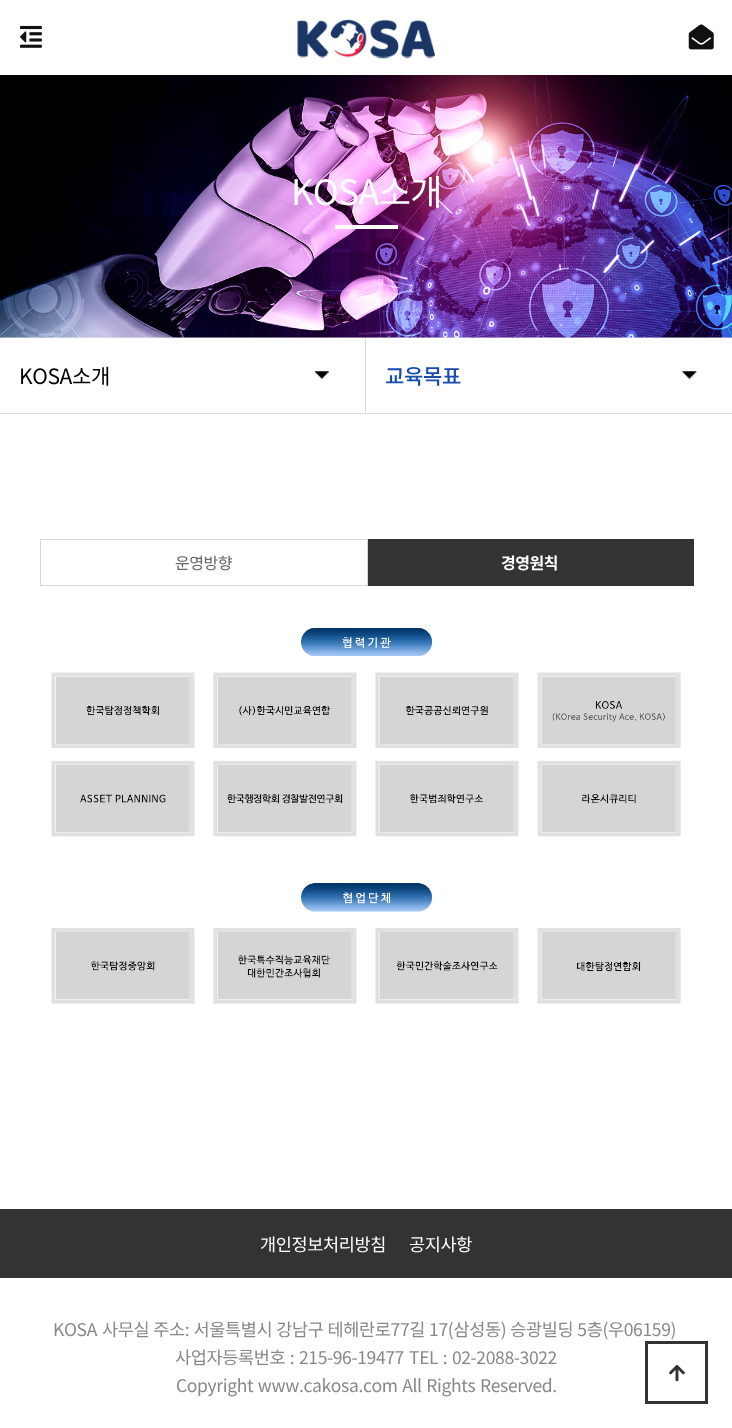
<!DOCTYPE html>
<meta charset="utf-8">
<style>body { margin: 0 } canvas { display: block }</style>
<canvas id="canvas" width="732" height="1428"></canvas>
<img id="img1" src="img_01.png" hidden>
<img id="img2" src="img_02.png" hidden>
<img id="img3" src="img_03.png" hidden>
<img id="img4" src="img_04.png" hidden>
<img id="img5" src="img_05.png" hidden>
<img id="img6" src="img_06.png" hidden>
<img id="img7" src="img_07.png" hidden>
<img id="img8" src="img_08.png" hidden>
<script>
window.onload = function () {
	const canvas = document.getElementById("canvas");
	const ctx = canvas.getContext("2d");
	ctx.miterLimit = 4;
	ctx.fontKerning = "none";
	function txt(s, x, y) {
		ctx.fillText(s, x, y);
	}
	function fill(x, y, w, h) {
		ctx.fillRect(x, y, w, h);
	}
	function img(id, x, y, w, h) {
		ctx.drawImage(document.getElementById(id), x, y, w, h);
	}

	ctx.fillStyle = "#FFFFFF";
	fill(0, 0, 732, 1428);
	img("img1", 297, 19, 138, 40);
	img("img2", 20, 25, 22, 23);
	img("img3", 688, 24, 26, 26);
	ctx.fillStyle = "#E8E9EB";
	fill(0, 337, 732, 1);
	img("img4", 0, 75, 732, 263);
	ctx.fillStyle = "#FFFFFF";
	fill(335, 225, 63, 4);
	ctx.fillStyle = "#DDDDDD";
	fill(0, 413, 732, 1);
	fill(365, 338, 1, 75);
	img("img5", 315, 371, 14, 8);
	img("img6", 682, 371, 15, 8);
	ctx.strokeStyle = "#D7D7D7";
	ctx.strokeRect(40.5, 539.5, 327, 46);
	ctx.fillStyle = "#333333";
	fill(368, 539, 326, 47);
	img("img7", 51, 626, 633, 378);
	fill(0, 1209, 732, 69);
	ctx.strokeStyle = "#333333";
	ctx.lineWidth = 3;
	ctx.strokeRect(646.5, 1342.5, 60, 60);
	img("img8", 669, 1364, 16, 18);
	ctx.letterSpacing = "-0.75px";
	ctx.font = "35px Noto Sans KR";
	ctx.fillStyle = "#FFFFFF";
	txt("KOSA소개", 291, 205);
	ctx.letterSpacing = "-0.35px";
	ctx.font = "21px Noto Sans KR";
	ctx.fillStyle = "#000000";
	txt("KOSA소개", 19, 384);
	ctx.font = "500 21px Noto Sans KR";
	ctx.fillStyle = "#174CAC";
	txt("교육목표", 385, 384);
	ctx.letterSpacing = "-0.5px";
	ctx.font = "16px Noto Sans KR";
	ctx.fillStyle = "#666666";
	txt("운영방향", 175, 569);
	ctx.font = "bold 16px Noto Sans KR";
	ctx.fillStyle = "#FFFFFF";
	txt("경영원칙", 501, 569);
	ctx.letterSpacing = "-0.35px";
	ctx.font = "17.5px Noto Sans KR";
	txt("개인정보처리방침", 260, 1251);
	txt("공지사항", 409, 1251);
	ctx.fillStyle = "#888888";
	txt("KOSA", 53, 1336);
	ctx.wordSpacing = "0.5px";
	txt("사무실 주소: 서울특별시 강남구 테헤란로77길 17(삼성동) 승광빌딩 5층(우06159)", 102, 1336);
	ctx.wordSpacing = "1px";
	txt("사업자등록번호 : 215-96-19477", 175, 1364);
	txt("TEL : 02-2088-3022", 409, 1364);
	txt("Copyright www.cakosa.com All Rights Reserved.", 176, 1392);
};
</script>
